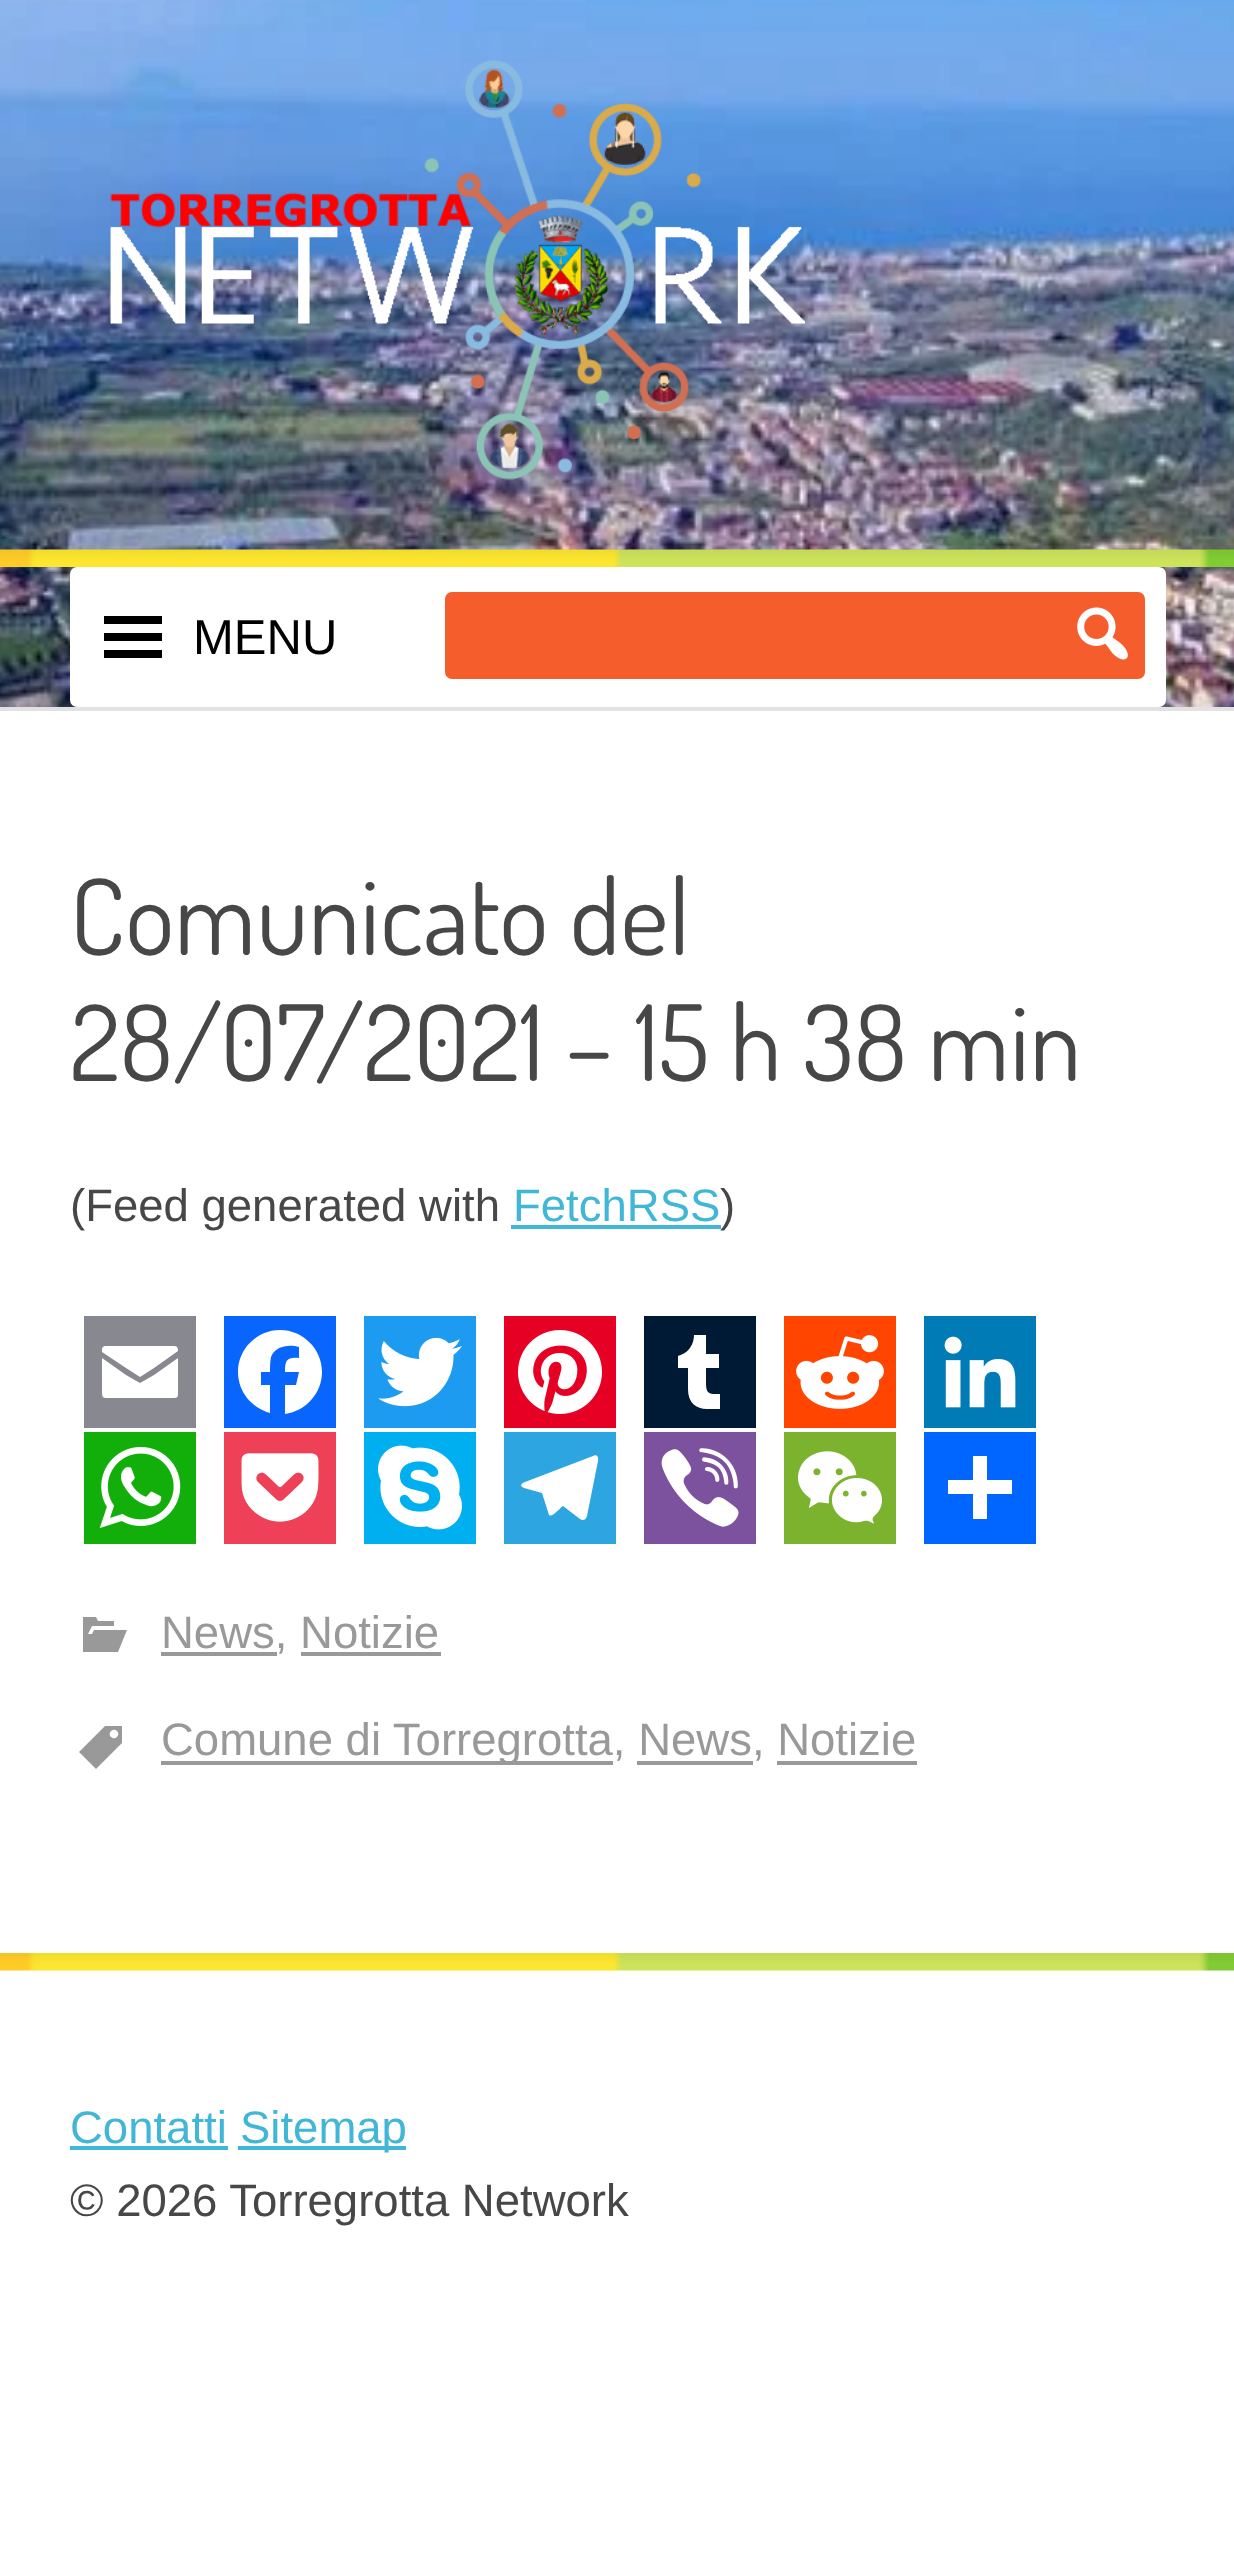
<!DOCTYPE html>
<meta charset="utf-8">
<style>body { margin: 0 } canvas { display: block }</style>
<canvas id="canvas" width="1234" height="2566"></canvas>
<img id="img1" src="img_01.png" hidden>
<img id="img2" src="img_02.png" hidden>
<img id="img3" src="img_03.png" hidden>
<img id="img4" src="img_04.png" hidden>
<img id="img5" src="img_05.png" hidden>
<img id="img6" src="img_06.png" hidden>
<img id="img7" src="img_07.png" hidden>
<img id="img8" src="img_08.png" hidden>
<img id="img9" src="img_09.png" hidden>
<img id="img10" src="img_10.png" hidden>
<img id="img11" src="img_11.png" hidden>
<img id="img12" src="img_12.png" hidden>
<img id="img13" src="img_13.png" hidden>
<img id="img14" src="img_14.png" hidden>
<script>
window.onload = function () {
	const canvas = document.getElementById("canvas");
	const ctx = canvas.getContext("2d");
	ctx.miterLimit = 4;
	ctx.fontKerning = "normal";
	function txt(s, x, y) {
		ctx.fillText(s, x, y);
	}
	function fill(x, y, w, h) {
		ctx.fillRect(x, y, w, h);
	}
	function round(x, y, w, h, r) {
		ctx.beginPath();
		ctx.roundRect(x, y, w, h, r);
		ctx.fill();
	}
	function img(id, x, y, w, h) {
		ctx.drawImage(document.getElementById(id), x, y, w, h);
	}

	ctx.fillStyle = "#FFFFFF";
	fill(0, 0, 1234, 2566);
	img("img1", 0, 0, 1234, 707);
	img("img2", 110, 60, 695, 420);
	img("img3", 0, 549, 1234, 18);
	ctx.fillStyle = "#E2E2E2";
	fill(0, 707, 1234, 4);
	ctx.fillStyle = "#FFFFFF";
	round(70, 567, 1096, 140, 7);
	ctx.fillStyle = "#000000";
	ctx.beginPath();
	ctx.moveTo(104, 658);
	ctx.lineTo(162, 658);
	ctx.lineTo(162, 650);
	ctx.lineTo(104, 650);
	ctx.closePath();
	ctx.moveTo(104, 616);
	ctx.lineTo(104, 624);
	ctx.lineTo(162, 624);
	ctx.lineTo(162, 616);
	ctx.closePath();
	ctx.moveTo(104, 641);
	ctx.lineTo(162, 641);
	ctx.lineTo(162, 633);
	ctx.lineTo(104, 633);
	ctx.closePath();
	ctx.fill();
	ctx.fillStyle = "#F55D2D";
	round(445, 592, 700, 87, 7);
	img("img4", 1077, 607, 51, 53);
	ctx.fillStyle = "#41B7D8";
	fill(511, 1225, 210, 4);
	ctx.fillStyle = "#888990";
	fill(84, 1316, 112, 112);
	ctx.fillStyle = "#FFFFFF";
	ctx.beginPath();
	ctx.moveTo(178, 1392);
	ctx.lineTo(178, 1358);
	ctx.lineTo(154, 1375);
	ctx.lineTo(140, 1383);
	ctx.lineTo(126, 1375);
	ctx.lineTo(102, 1358);
	ctx.lineTo(102, 1392);
	ctx.bezierCurveTo(102, 1397, 103, 1398, 107, 1398);
	ctx.lineTo(173, 1398);
	ctx.bezierCurveTo(178, 1398, 178, 1397, 178, 1392);
	ctx.moveTo(178, 1351);
	ctx.bezierCurveTo(178, 1347, 177, 1346, 173, 1346);
	ctx.lineTo(107, 1346);
	ctx.bezierCurveTo(102, 1346, 102, 1348, 102, 1351);
	ctx.lineTo(102, 1352);
	ctx.lineTo(126, 1368);
	ctx.lineTo(140, 1377);
	ctx.lineTo(154, 1368);
	ctx.closePath();
	ctx.fill();
	ctx.fillStyle = "#0866FF";
	fill(224, 1316, 112, 112);
	ctx.fillStyle = "#FFFFFF";
	ctx.beginPath();
	ctx.moveTo(322, 1372);
	ctx.bezierCurveTo(322, 1349, 303, 1330, 280, 1330);
	ctx.bezierCurveTo(257, 1330, 238, 1349, 238, 1372);
	ctx.bezierCurveTo(238, 1392, 252, 1408, 270, 1413);
	ctx.lineTo(270, 1385);
	ctx.lineTo(261, 1385);
	ctx.lineTo(261, 1372);
	ctx.lineTo(270, 1372);
	ctx.bezierCurveTo(270, 1367, 270, 1362, 271, 1357);
	ctx.bezierCurveTo(275, 1346, 289, 1344, 299, 1347);
	ctx.lineTo(299, 1358);
	ctx.bezierCurveTo(287, 1357, 285, 1360, 285, 1372);
	ctx.lineTo(299, 1372);
	ctx.lineTo(296, 1385);
	ctx.lineTo(285, 1385);
	ctx.lineTo(285, 1414);
	ctx.bezierCurveTo(306, 1411, 322, 1393, 322, 1372);
	ctx.fill();
	ctx.fillStyle = "#1D9BF0";
	fill(364, 1316, 112, 112);
	img("img5", 378, 1337, 84, 70);
	ctx.fillStyle = "#E60023";
	fill(504, 1316, 112, 112);
	img("img6", 518, 1330, 84, 84);
	ctx.fillStyle = "#001935";
	fill(644, 1316, 112, 112);
	ctx.fillStyle = "#FFFFFF";
	ctx.beginPath();
	ctx.moveTo(720, 1409);
	ctx.lineTo(707, 1409);
	ctx.bezierCurveTo(696, 1409, 688, 1403, 688, 1389);
	ctx.lineTo(688, 1368);
	ctx.lineTo(678, 1368);
	ctx.lineTo(678, 1356);
	ctx.bezierCurveTo(689, 1353, 694, 1344, 694, 1335);
	ctx.lineTo(706, 1335);
	ctx.lineTo(706, 1354);
	ctx.lineTo(719, 1354);
	ctx.lineTo(719, 1368);
	ctx.lineTo(706, 1368);
	ctx.lineTo(706, 1383);
	ctx.bezierCurveTo(706, 1395, 710, 1394, 720, 1394);
	ctx.closePath();
	ctx.fill("evenodd");
	ctx.fillStyle = "#FF4500";
	fill(784, 1316, 112, 112);
	img("img7", 796, 1335, 88, 74);
	ctx.fillStyle = "#007BB5";
	fill(924, 1316, 112, 112);
	img("img8", 944, 1336, 72, 72);
	ctx.fillStyle = "#12AF0A";
	fill(84, 1432, 112, 112);
	img("img9", 99, 1446, 82, 82);
	ctx.fillStyle = "#EE4056";
	fill(224, 1432, 112, 112);
	img("img10", 241, 1453, 78, 69);
	ctx.fillStyle = "#00AFF0";
	fill(364, 1432, 112, 112);
	img("img11", 378, 1445, 84, 85);
	ctx.fillStyle = "#2CA5E0";
	fill(504, 1432, 112, 112);
	ctx.fillStyle = "#FFFFFF";
	ctx.beginPath();
	ctx.moveTo(593, 1456);
	ctx.lineTo(525, 1482);
	ctx.bezierCurveTo(520, 1484, 520, 1486, 524, 1488);
	ctx.lineTo(542, 1493);
	ctx.lineTo(549, 1515);
	ctx.bezierCurveTo(552, 1518, 561, 1507, 563, 1506);
	ctx.lineTo(580, 1519);
	ctx.bezierCurveTo(583, 1521, 586, 1520, 587, 1516);
	ctx.lineTo(598, 1461);
	ctx.bezierCurveTo(599, 1456, 596, 1454, 593, 1456);
	ctx.closePath();
	ctx.fill();
	ctx.fillStyle = "#7C529E";
	fill(644, 1432, 112, 112);
	img("img12", 661, 1448, 78, 79);
	ctx.fillStyle = "#7BB32E";
	fill(784, 1432, 112, 112);
	img("img13", 798, 1451, 84, 73);
	ctx.fillStyle = "#0166FF";
	fill(924, 1432, 112, 112);
	ctx.fillStyle = "#FFFFFF";
	fill(973, 1456, 14, 63);
	fill(948, 1480, 64, 14);
	ctx.fillStyle = "#999999";
	ctx.beginPath();
	ctx.moveTo(94, 1630);
	ctx.lineTo(127, 1630);
	ctx.lineTo(118, 1652);
	ctx.lineTo(83, 1652);
	ctx.lineTo(83, 1617);
	ctx.lineTo(96, 1617);
	ctx.lineTo(98, 1621);
	ctx.lineTo(114, 1621);
	ctx.lineTo(114, 1626);
	ctx.lineTo(92, 1626);
	ctx.lineTo(88, 1634);
	ctx.lineTo(92, 1634);
	ctx.closePath();
	ctx.fill();
	fill(161, 1652, 116, 4);
	fill(301, 1652, 140, 4);
	ctx.beginPath();
	ctx.moveTo(105, 1726);
	ctx.lineTo(122, 1726);
	ctx.lineTo(122, 1743);
	ctx.lineTo(96, 1769);
	ctx.lineTo(79, 1752);
	ctx.closePath();
	ctx.moveTo(111, 1737);
	ctx.bezierCurveTo(115, 1741, 121, 1735, 117, 1731);
	ctx.bezierCurveTo(113, 1727, 107, 1733, 111, 1737);
	ctx.closePath();
	ctx.fill();
	fill(161, 1761, 452, 4);
	fill(637, 1761, 116, 4);
	fill(777, 1761, 140, 4);
	img("img14", 0, 1953, 1234, 18);
	ctx.fillStyle = "#41B7D8";
	fill(70, 2146, 158, 4);
	fill(238, 2146, 168, 4);
	ctx.font = "49px Liberation Sans";
	ctx.fillStyle = "#000000";
	txt("MENU", 193, 654);
	ctx.font = "105px Dosis";
	ctx.fillStyle = "#474747";
	txt("Comunicato del", 70, 955);
	txt("28/07/2021 – 15 h 38 min", 70, 1081);
	ctx.font = "45.5px Liberation Sans";
	txt("(Feed generated with", 70, 1221);
	ctx.fillStyle = "#41B7D8";
	txt("FetchRSS", 513, 1221);
	ctx.fillStyle = "#474747";
	txt(")", 720, 1221);
	ctx.fillStyle = "#999999";
	txt("News, Notizie", 161, 1648);
	txt("Comune di Torregrotta, News, Notizie", 161, 1755);
	ctx.fillStyle = "#41B7D8";
	txt("Contatti", 70, 2143);
	txt("Sitemap", 240, 2143);
	ctx.fillStyle = "#474747";
	txt("© 2026 Torregrotta Network", 70, 2216);
};
</script>
